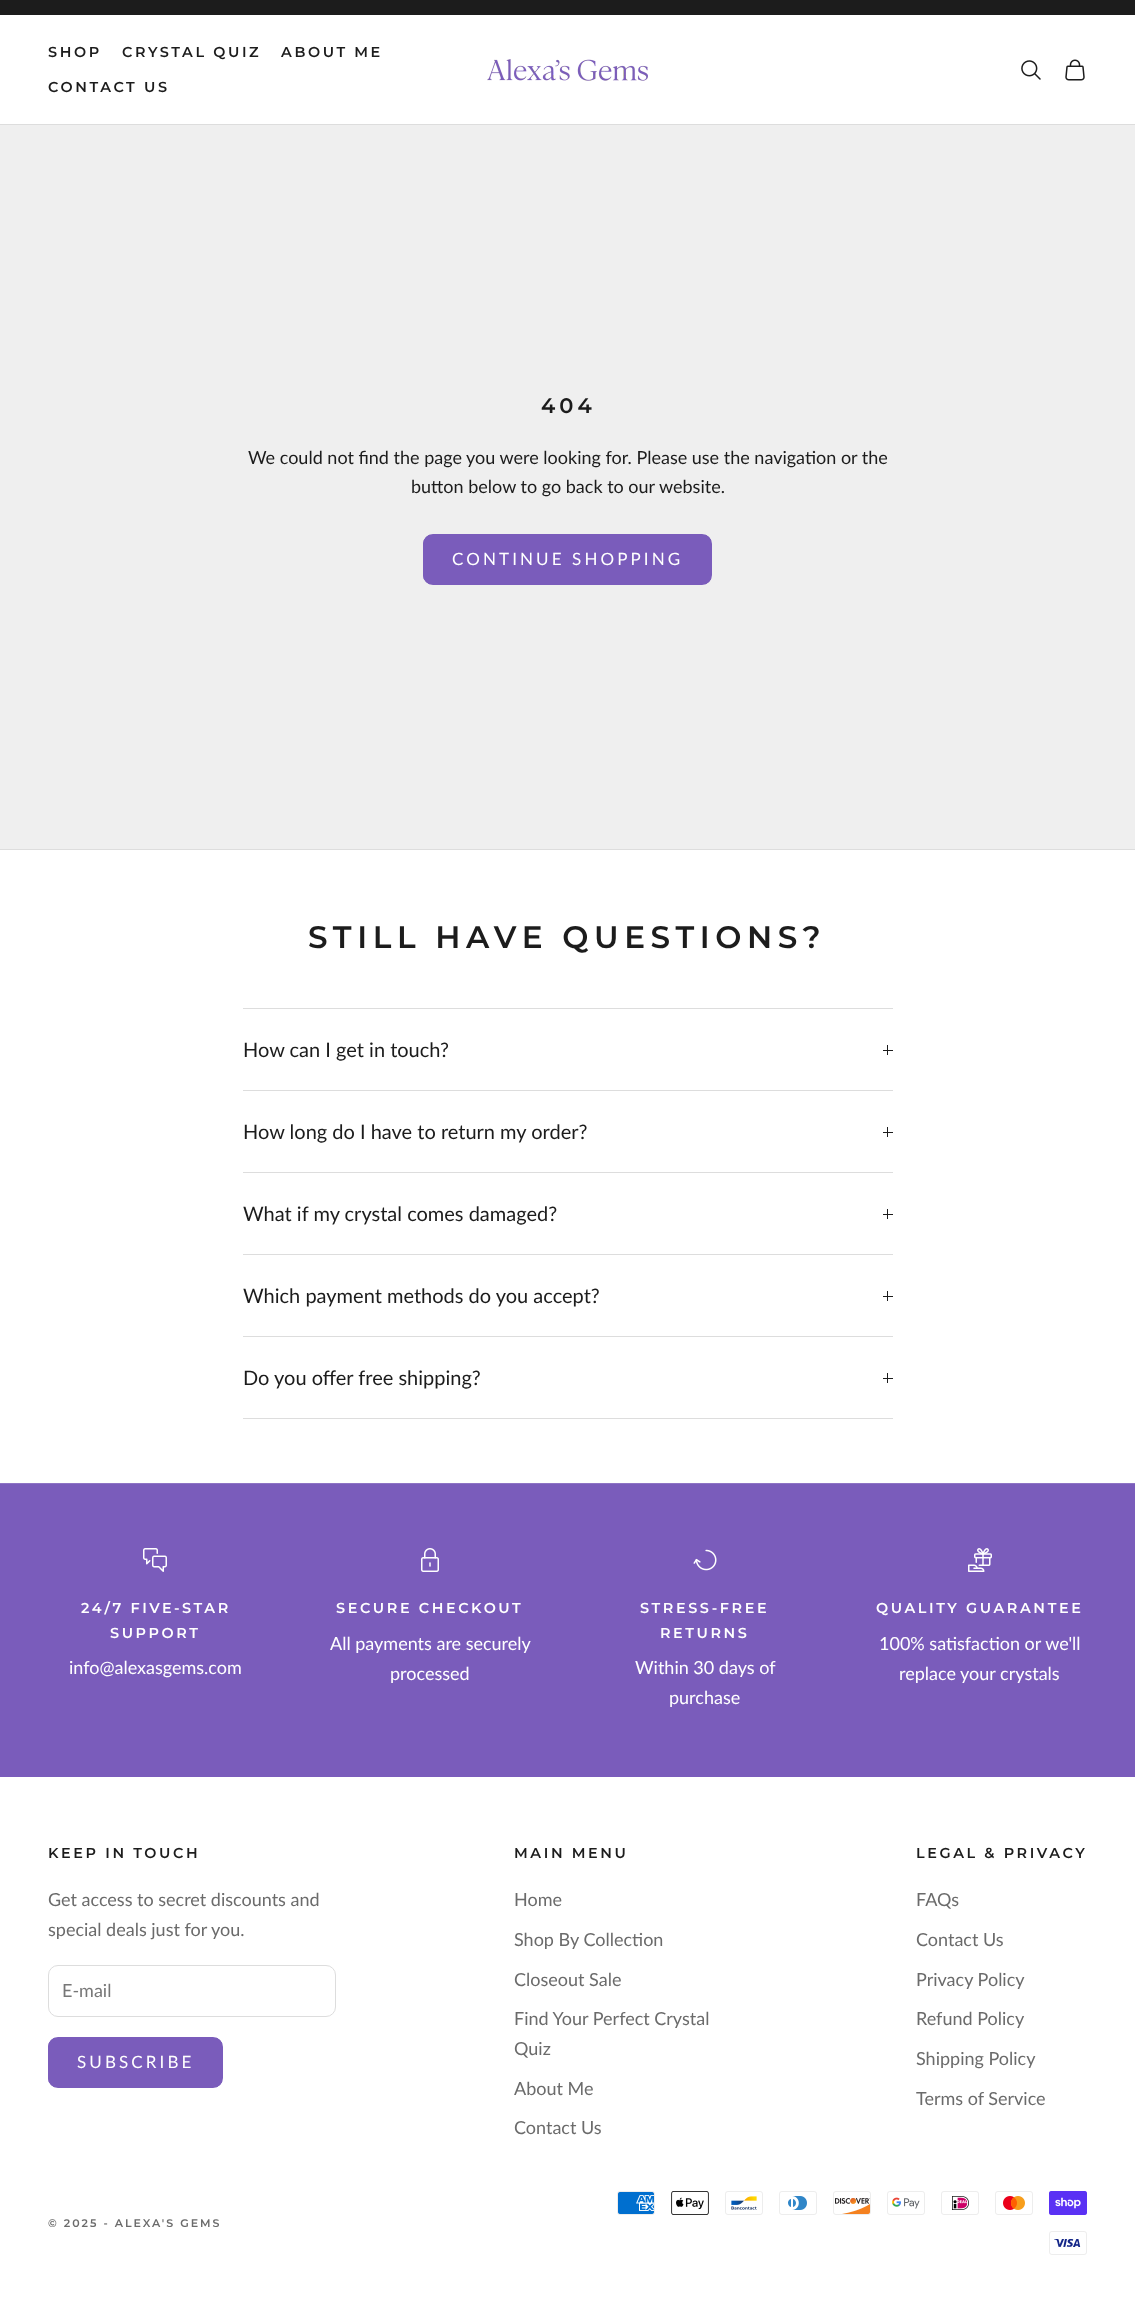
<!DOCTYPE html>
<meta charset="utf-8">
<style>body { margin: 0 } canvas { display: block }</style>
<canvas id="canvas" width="1135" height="2303"></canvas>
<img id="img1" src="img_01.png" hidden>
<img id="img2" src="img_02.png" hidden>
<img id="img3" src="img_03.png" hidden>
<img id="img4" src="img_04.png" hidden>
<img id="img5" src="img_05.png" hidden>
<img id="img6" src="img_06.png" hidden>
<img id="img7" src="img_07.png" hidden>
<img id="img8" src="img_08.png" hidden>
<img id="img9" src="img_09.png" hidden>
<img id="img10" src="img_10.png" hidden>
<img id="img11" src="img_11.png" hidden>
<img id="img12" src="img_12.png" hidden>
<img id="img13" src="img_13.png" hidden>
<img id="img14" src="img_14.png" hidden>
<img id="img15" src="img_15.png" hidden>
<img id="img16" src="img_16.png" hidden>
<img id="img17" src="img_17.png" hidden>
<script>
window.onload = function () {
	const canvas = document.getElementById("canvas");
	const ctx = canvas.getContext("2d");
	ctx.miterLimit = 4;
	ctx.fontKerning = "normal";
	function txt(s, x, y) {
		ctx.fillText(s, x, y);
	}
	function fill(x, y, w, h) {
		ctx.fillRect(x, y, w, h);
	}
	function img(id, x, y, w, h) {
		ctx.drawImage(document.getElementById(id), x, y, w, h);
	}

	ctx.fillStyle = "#EFEFEF";
	fill(0, 0, 1135, 2303);
	ctx.fillStyle = "#1C1C1C";
	fill(0, 0, 1135, 15);
	ctx.fillStyle = "#FFFFFF";
	fill(0, 15, 1135, 109);
	ctx.fillStyle = "#DDDDDD";
	fill(0, 124, 1135, 1);
	img("img1", 487, 59, 161, 22);
	img("img2", 1021, 60, 20, 20);
	img("img3", 1065, 59, 20, 22);
	ctx.save();
	ctx.beginPath();
	ctx.roundRect(423, 534, 289, 51, 10);
	ctx.clip();
	ctx.fillStyle = "#7A5CBB";
	fill(423, 535, 288, 49);
	ctx.restore();
	ctx.beginPath();
	ctx.roundRect(423.5, 534.5, 288, 50, 9.5);
	ctx.strokeStyle = "#7A5CBB";
	ctx.stroke();
	ctx.fillStyle = "#FFFFFF";
	fill(0, 850, 1135, 633);
	ctx.fillStyle = "#DDDDDD";
	fill(0, 849, 1135, 1);
	fill(243, 1008, 650, 1);
	fill(243, 1090, 650, 1);
	ctx.fillStyle = "#1C1C1C";
	fill(887, 1045, 1, 10);
	fill(883, 1050, 10, 1);
	ctx.fillStyle = "#DDDDDD";
	fill(243, 1172, 650, 1);
	ctx.fillStyle = "#1C1C1C";
	fill(887, 1127, 1, 10);
	fill(883, 1132, 10, 1);
	ctx.fillStyle = "#DDDDDD";
	fill(243, 1254, 650, 1);
	ctx.fillStyle = "#1C1C1C";
	fill(887, 1209, 1, 10);
	fill(883, 1214, 10, 1);
	ctx.fillStyle = "#DDDDDD";
	fill(243, 1336, 650, 1);
	ctx.fillStyle = "#1C1C1C";
	fill(887, 1291, 1, 10);
	fill(883, 1296, 10, 1);
	ctx.fillStyle = "#DDDDDD";
	fill(243, 1418, 650, 1);
	ctx.fillStyle = "#1C1C1C";
	fill(887, 1373, 1, 10);
	fill(883, 1378, 10, 1);
	ctx.fillStyle = "#7A5CBB";
	fill(0, 1484, 1135, 293);
	ctx.fillStyle = "#8E74C5";
	fill(0, 1483, 1135, 1);
	img("img4", 143, 1548, 24, 24);
	img("img5", 421, 1548, 18, 24);
	img("img6", 693, 1549, 24, 22);
	img("img7", 968, 1548, 24, 24);
	ctx.fillStyle = "#FFFFFF";
	fill(0, 1777, 1135, 526);
	ctx.beginPath();
	ctx.roundRect(48.5, 1965.5, 287, 51, 9.5);
	ctx.strokeStyle = "#DDDDDD";
	ctx.stroke();
	ctx.save();
	ctx.beginPath();
	ctx.roundRect(48, 2037, 175, 51, 10);
	ctx.clip();
	ctx.fillStyle = "#7A5CBB";
	fill(48, 2038, 174, 49);
	ctx.restore();
	ctx.beginPath();
	ctx.roundRect(48.5, 2037.5, 174, 50, 9.5);
	ctx.strokeStyle = "#7A5CBB";
	ctx.stroke();
	img("img8", 617, 2191, 38, 24);
	img("img9", 671, 2191, 38, 24);
	img("img10", 725, 2191, 38, 24);
	img("img11", 779, 2191, 38, 24);
	img("img12", 833, 2191, 38, 24);
	img("img13", 887, 2191, 38, 24);
	img("img14", 941, 2191, 38, 24);
	img("img15", 995, 2191, 38, 24);
	img("img16", 1049, 2191, 38, 24);
	img("img17", 1049, 2231, 38, 24);
	ctx.letterSpacing = "2.6px";
	ctx.font = "600 14.4px Montserrat";
	ctx.fillStyle = "#1C1C1C";
	txt("SHOP", 48, 57);
	txt("CRYSTAL QUIZ", 122, 57);
	txt("ABOUT ME", 281, 57);
	txt("CONTACT US", 48, 92);
	ctx.letterSpacing = "4px";
	ctx.font = "600 21px Montserrat";
	txt("404", 541, 413);
	ctx.letterSpacing = "0px";
	ctx.font = "18px Lato";
	txt("We could not find the page you were looking for. Please use the navigation or the", 248, 464);
	txt("button below to go back to our website.", 411, 493);
	ctx.letterSpacing = "3.1px";
	ctx.font = "17px Lato";
	ctx.fillStyle = "#FFFFFF";
	txt("CONTINUE SHOPPING", 452, 565);
	ctx.letterSpacing = "5.6px";
	ctx.font = "600 31.1px Montserrat";
	ctx.fillStyle = "#1C1C1C";
	txt("STILL HAVE QUESTIONS?", 308, 948);
	ctx.letterSpacing = "0px";
	ctx.font = "20px Lato";
	txt("How can I get in touch?", 243, 1057);
	txt("How long do I have to return my order?", 243, 1139);
	txt("What if my crystal comes damaged?", 243, 1221);
	txt("Which payment methods do you accept?", 243, 1303);
	txt("Do you offer free shipping?", 243, 1385);
	ctx.letterSpacing = "2.6px";
	ctx.font = "600 14.4px Montserrat";
	ctx.fillStyle = "#FFFFFF";
	txt("24/7 FIVE-STAR", 81, 1613);
	txt("SUPPORT", 110, 1638);
	ctx.letterSpacing = "0px";
	ctx.font = "18px Lato";
	txt("info@alexasgems.com", 69, 1674);
	ctx.letterSpacing = "2.6px";
	ctx.font = "600 14.4px Montserrat";
	txt("SECURE CHECKOUT", 336, 1613);
	ctx.letterSpacing = "0px";
	ctx.font = "18px Lato";
	txt("All payments are securely", 330, 1650);
	txt("processed", 390, 1680);
	ctx.letterSpacing = "2.6px";
	ctx.font = "600 14.4px Montserrat";
	txt("STRESS-FREE", 640, 1613);
	txt("RETURNS", 660, 1638);
	ctx.letterSpacing = "0px";
	ctx.font = "18px Lato";
	txt("Within 30 days of", 635, 1674);
	txt("purchase", 669, 1704);
	ctx.letterSpacing = "2.6px";
	ctx.font = "600 14.4px Montserrat";
	txt("QUALITY GUARANTEE", 876, 1613);
	ctx.letterSpacing = "0px";
	ctx.font = "18px Lato";
	txt("100% satisfaction or we'll", 879, 1650);
	txt("replace your crystals", 899, 1680);
	ctx.letterSpacing = "2.6px";
	ctx.font = "600 14.4px Montserrat";
	ctx.fillStyle = "#1C1C1C";
	txt("KEEP IN TOUCH", 48, 1858);
	ctx.letterSpacing = "0px";
	ctx.font = "18px Lato";
	ctx.fillStyle = "#6B6B6B";
	txt("Get access to secret discounts and", 48, 1906);
	txt("special deals just for you.", 48, 1936);
	ctx.fillStyle = "#777777";
	txt("E-mail", 62, 1997);
	ctx.letterSpacing = "3.1px";
	ctx.font = "17px Lato";
	ctx.fillStyle = "#FFFFFF";
	txt("SUBSCRIBE", 77, 2068);
	ctx.letterSpacing = "2.6px";
	ctx.font = "600 14.4px Montserrat";
	ctx.fillStyle = "#1C1C1C";
	txt("MAIN MENU", 514, 1858);
	ctx.letterSpacing = "0px";
	ctx.font = "18px Lato";
	ctx.fillStyle = "#6B6B6B";
	txt("Home", 514, 1906);
	txt("Shop By Collection", 514, 1946);
	txt("Closeout Sale", 514, 1986);
	txt("Find Your Perfect Crystal", 514, 2025);
	txt("Quiz", 514, 2055);
	txt("About Me", 514, 2095);
	txt("Contact Us", 514, 2134);
	ctx.letterSpacing = "2.6px";
	ctx.font = "600 14.4px Montserrat";
	ctx.fillStyle = "#1C1C1C";
	txt("LEGAL & PRIVACY", 916, 1858);
	ctx.letterSpacing = "0px";
	ctx.font = "18px Lato";
	ctx.fillStyle = "#6B6B6B";
	txt("FAQs", 916, 1906);
	txt("Contact Us", 916, 1946);
	txt("Privacy Policy", 916, 1986);
	txt("Refund Policy", 916, 2025);
	txt("Shipping Policy", 916, 2065);
	txt("Terms of Service", 916, 2105);
	ctx.letterSpacing = "2px";
	ctx.font = "600 11px Montserrat";
	txt("© 2025 - ALEXA'S GEMS", 48, 2227);
};
</script>
